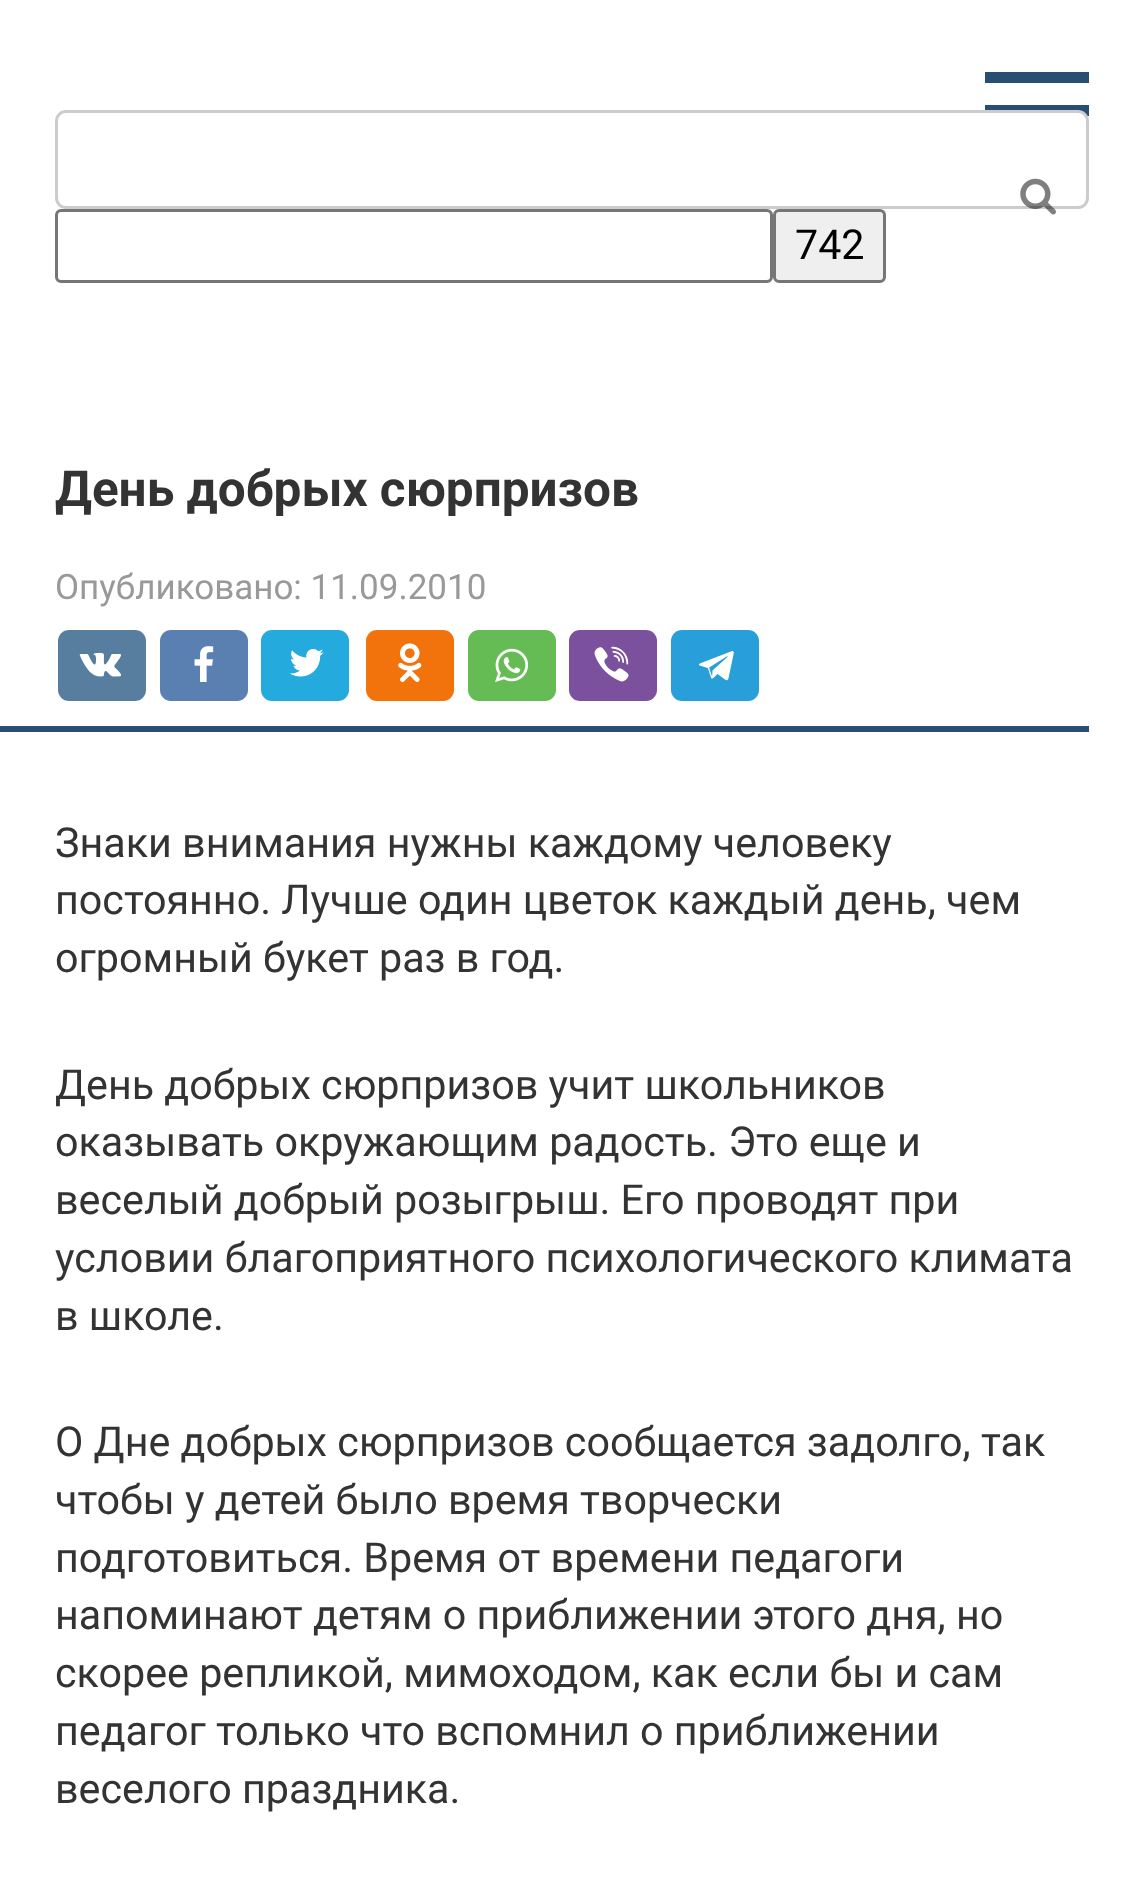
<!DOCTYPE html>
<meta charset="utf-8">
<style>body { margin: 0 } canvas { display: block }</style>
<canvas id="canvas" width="1143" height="1890"></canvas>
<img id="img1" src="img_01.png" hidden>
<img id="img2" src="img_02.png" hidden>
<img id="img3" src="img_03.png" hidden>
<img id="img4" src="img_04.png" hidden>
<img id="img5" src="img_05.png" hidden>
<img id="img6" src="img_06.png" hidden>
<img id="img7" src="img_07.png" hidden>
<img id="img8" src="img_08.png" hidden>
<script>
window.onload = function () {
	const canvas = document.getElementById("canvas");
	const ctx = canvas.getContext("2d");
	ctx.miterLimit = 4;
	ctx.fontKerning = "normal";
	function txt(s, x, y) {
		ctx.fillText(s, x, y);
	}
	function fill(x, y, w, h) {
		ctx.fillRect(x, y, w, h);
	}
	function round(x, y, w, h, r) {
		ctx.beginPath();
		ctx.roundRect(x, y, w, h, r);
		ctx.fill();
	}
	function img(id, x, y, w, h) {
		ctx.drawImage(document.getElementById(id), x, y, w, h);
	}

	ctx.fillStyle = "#FFFFFF";
	fill(0, 0, 1143, 1890);
	ctx.fillStyle = "#294E73";
	fill(985, 72, 104, 11);
	fill(985, 105, 104, 11);
	ctx.fillStyle = "#FFFFFF";
	ctx.beginPath();
	ctx.roundRect(56.5, 111.5, 1031, 96, 9.5);
	ctx.fill();
	ctx.strokeStyle = "#CCCCCC";
	ctx.lineWidth = 3;
	ctx.stroke();
	img("img1", 1020, 178, 36, 37);
	ctx.beginPath();
	ctx.roundRect(56.5, 210.5, 715, 71, 4.5);
	ctx.strokeStyle = "#767676";
	ctx.stroke();
	ctx.fillStyle = "#EFEFEF";
	ctx.beginPath();
	ctx.roundRect(774.5, 210.5, 110, 71, 4.5);
	ctx.fill();
	ctx.stroke();
	ctx.fillStyle = "#587E9F";
	round(58, 630, 88, 71, 11);
	img("img2", 79, 652, 42, 25);
	ctx.fillStyle = "#5A80B1";
	round(160, 630, 88, 71, 11);
	img("img3", 194, 646, 20, 36);
	ctx.fillStyle = "#24AADD";
	round(261, 630, 88, 71, 11);
	img("img4", 290, 648, 34, 29);
	ctx.fillStyle = "#F2720C";
	round(366, 630, 88, 71, 11);
	img("img5", 398, 643, 24, 39);
	ctx.fillStyle = "#65BC54";
	round(468, 630, 88, 71, 11);
	img("img6", 495, 648, 34, 35);
	ctx.fillStyle = "#7B519D";
	round(569, 630, 88, 71, 11);
	img("img7", 594, 646, 35, 36);
	ctx.fillStyle = "#289FD9";
	round(671, 630, 88, 71, 11);
	img("img8", 699, 651, 35, 30);
	ctx.fillStyle = "#294E73";
	fill(0, 726, 1089, 6);
	ctx.font = "41.25px Roboto";
	ctx.fillStyle = "#000000";
	txt("742", 795, 259);
	ctx.font = "bold 49.5px Roboto";
	ctx.fillStyle = "#333333";
	txt("День добрых сюрпризов", 55, 506);
	ctx.font = "35px Roboto";
	ctx.fillStyle = "#999999";
	txt("Опубликовано: 11.09.2010", 55, 599);
	ctx.font = "41.25px Roboto";
	ctx.fillStyle = "#333333";
	txt("Знаки внимания нужны каждому человеку", 55, 857);
	txt("постоянно. Лучше один цветок каждый день, чем", 55, 914);
	txt("огромный букет раз в год.", 55, 972);
	txt("День добрых сюрпризов учит школьников", 55, 1099);
	txt("оказывать окружающим радость. Это еще и", 55, 1156);
	txt("веселый добрый розыгрыш. Его проводят при", 55, 1214);
	txt("условии благоприятного психологического климата", 55, 1272);
	txt("в школе.", 55, 1330);
	txt("О Дне добрых сюрпризов сообщается задолго, так", 55, 1456);
	txt("чтобы у детей было время творчески", 55, 1514);
	txt("подготовиться. Время от времени педагоги", 55, 1572);
	txt("напоминают детям о приближении этого дня, но", 55, 1629);
	txt("скорее репликой, мимоходом, как если бы и сам", 55, 1687);
	txt("педагог только что вспомнил о приближении", 55, 1745);
	txt("веселого праздника.", 55, 1803);
};
</script>
